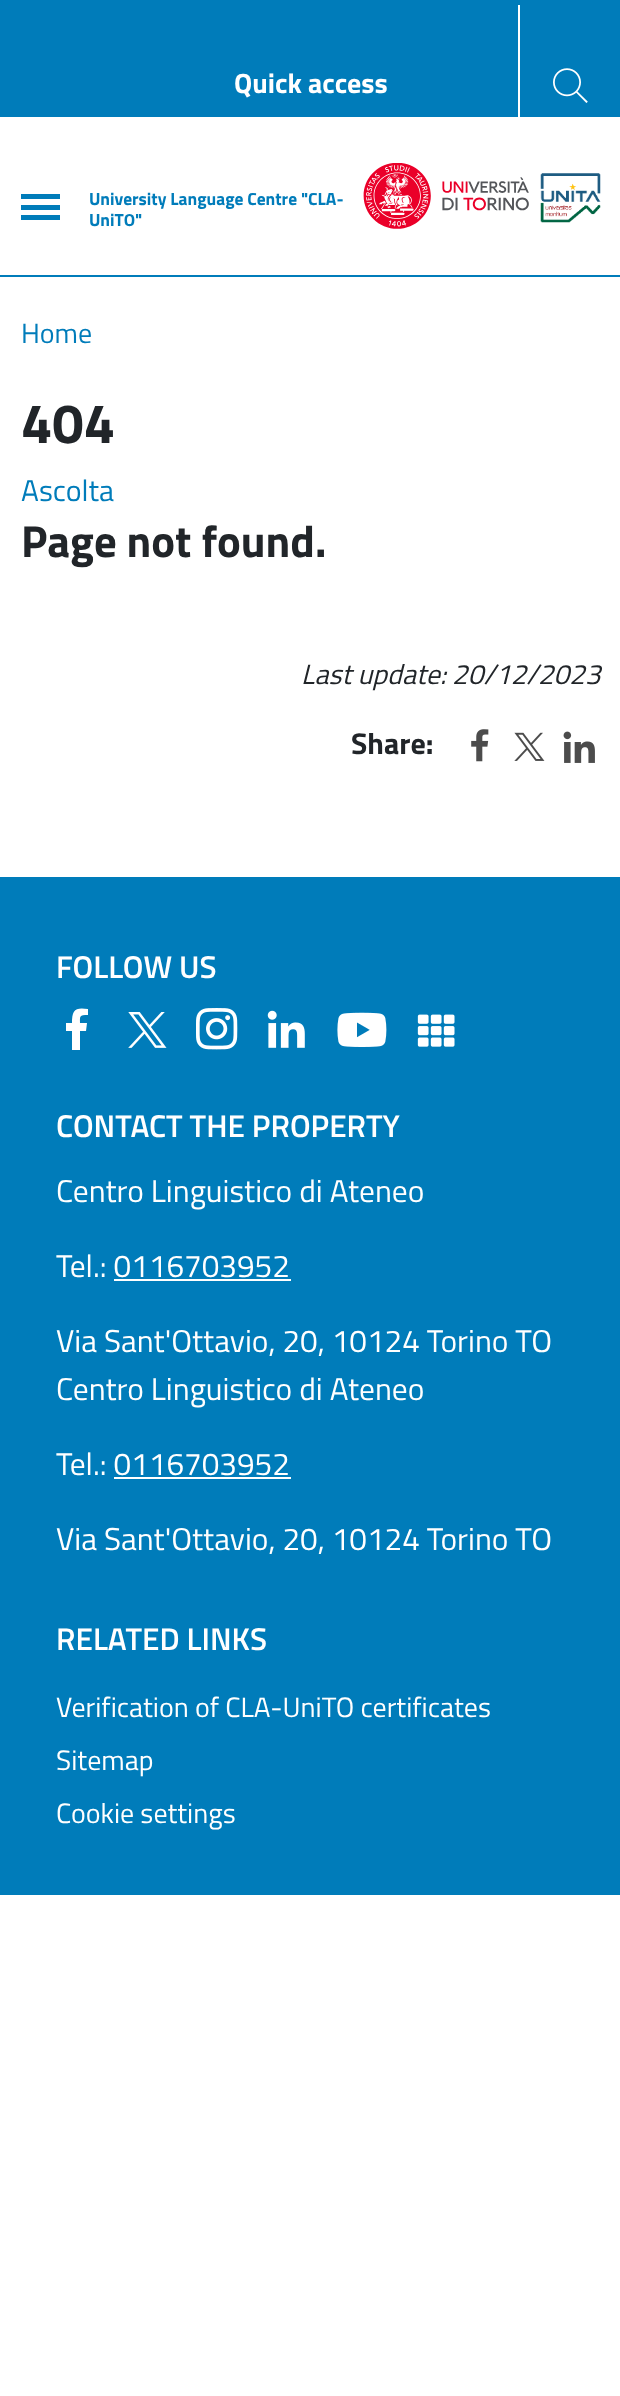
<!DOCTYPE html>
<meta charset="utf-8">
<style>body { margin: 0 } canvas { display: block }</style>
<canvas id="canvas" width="620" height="2396"></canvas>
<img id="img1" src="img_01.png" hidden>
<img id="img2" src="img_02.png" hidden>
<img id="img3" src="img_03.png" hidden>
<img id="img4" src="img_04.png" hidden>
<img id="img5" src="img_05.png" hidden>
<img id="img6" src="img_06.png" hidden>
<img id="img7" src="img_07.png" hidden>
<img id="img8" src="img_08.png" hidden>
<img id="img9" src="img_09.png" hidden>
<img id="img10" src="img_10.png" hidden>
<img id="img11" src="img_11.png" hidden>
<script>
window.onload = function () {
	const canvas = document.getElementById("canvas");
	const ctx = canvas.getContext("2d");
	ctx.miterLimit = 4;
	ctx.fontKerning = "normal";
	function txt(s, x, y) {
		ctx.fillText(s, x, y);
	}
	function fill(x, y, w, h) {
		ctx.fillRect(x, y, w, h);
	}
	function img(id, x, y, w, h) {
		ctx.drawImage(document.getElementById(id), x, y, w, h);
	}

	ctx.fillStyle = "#FFFFFF";
	fill(0, 0, 620, 2396);
	ctx.fillStyle = "#007CBA";
	fill(0, 0, 620, 117);
	ctx.fillStyle = "#FFFFFF";
	fill(518, 5, 2, 112);
	img("img1", 553, 68, 35, 35);
	ctx.fillStyle = "#007CBA";
	fill(0, 275, 620, 2);
	fill(21, 205, 39, 5);
	fill(21, 194, 39, 5);
	fill(21, 215, 39, 5);
	img("img2", 363, 163, 166, 66);
	img("img3", 540, 173, 61, 50);
	img("img4", 471, 729, 18, 33);
	img("img5", 514, 732, 31, 29);
	img("img6", 563, 731, 32, 32);
	fill(0, 877, 620, 1018);
	ctx.fillStyle = "#FFFFFF";
	ctx.beginPath();
	ctx.moveTo(80, 1050);
	ctx.lineTo(80, 1031);
	ctx.lineTo(86, 1031);
	ctx.lineTo(87, 1023);
	ctx.lineTo(80, 1023);
	ctx.bezierCurveTo(80, 1016, 79, 1015, 88, 1015);
	ctx.lineTo(88, 1009);
	ctx.bezierCurveTo(75, 1007, 72, 1010, 72, 1023);
	ctx.lineTo(66, 1023);
	ctx.lineTo(66, 1031);
	ctx.lineTo(72, 1031);
	ctx.lineTo(72, 1050);
	ctx.closePath();
	ctx.fill();
	img("img7", 128, 1012, 39, 36);
	img("img8", 196, 1008, 42, 42);
	img("img9", 267, 1010, 38, 38);
	img("img10", 337, 1012, 50, 35);
	img("img11", 417, 1014, 38, 33);
	fill(114, 1279, 177, 2);
	fill(114, 1477, 177, 2);
	ctx.font = "bold 28px Titillium Web";
	txt("Quick access", 234, 93);
	ctx.font = "bold 17.5px Titillium Web";
	ctx.fillStyle = "#007CBA";
	txt("University Language Centre \"CLA-", 89, 205);
	txt("UniTO\"", 89, 226);
	ctx.font = "28px Titillium Web";
	txt("Home", 21, 343);
	ctx.font = "bold 56px Titillium Web";
	ctx.fillStyle = "#212529";
	txt("404", 21, 443);
	ctx.font = "30px Titillium Web";
	ctx.fillStyle = "#007CBA";
	txt("Ascolta", 21, 501);
	ctx.font = "bold 44.75px Titillium Web";
	ctx.fillStyle = "#212529";
	txt("Page not found.", 21, 557);
	ctx.font = "italic 28px Titillium Web";
	txt("Last update: 20/12/2023", 301, 684);
	ctx.font = "bold 30px Titillium Web";
	txt("Share:", 351, 754);
	ctx.font = "600 31.5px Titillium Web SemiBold";
	ctx.fillStyle = "#FFFFFF";
	txt("FOLLOW US", 56, 978);
	txt("CONTACT THE PROPERTY", 56, 1137);
	ctx.font = "31.5px Titillium Web";
	txt("Centro Linguistico di Ateneo", 56, 1202);
	txt("Tel.: 0116703952", 56, 1277);
	txt("Via Sant'Ottavio, 20, 10124 Torino TO", 56, 1352);
	txt("Centro Linguistico di Ateneo", 56, 1400);
	txt("Tel.: 0116703952", 56, 1475);
	txt("Via Sant'Ottavio, 20, 10124 Torino TO", 56, 1550);
	ctx.font = "600 31.5px Titillium Web SemiBold";
	txt("RELATED LINKS", 56, 1650);
	ctx.font = "28px Titillium Web";
	txt("Verification of CLA-UniTO certificates", 56, 1717);
	txt("Sitemap", 56, 1770);
	txt("Cookie settings", 56, 1823);
};
</script>
